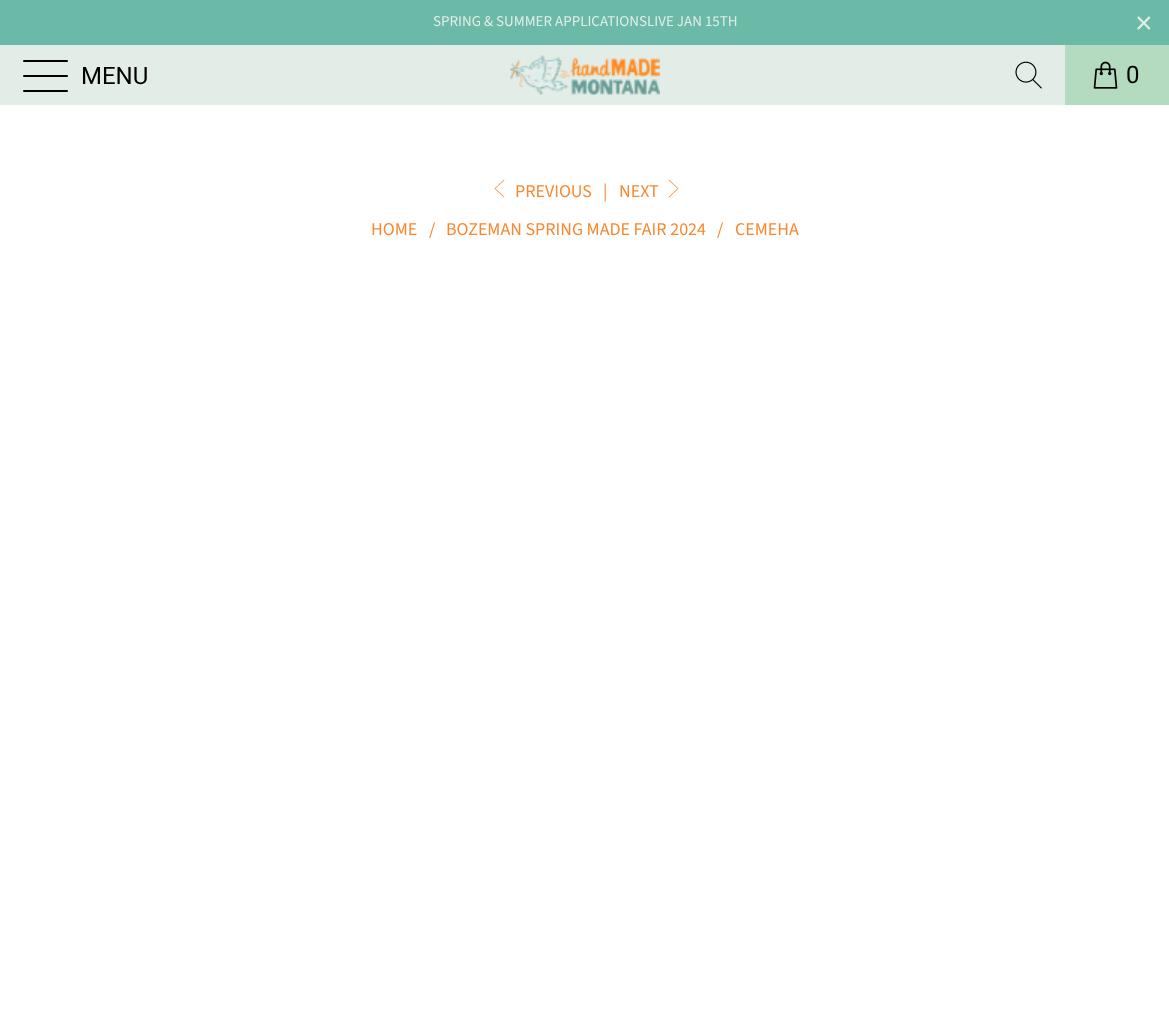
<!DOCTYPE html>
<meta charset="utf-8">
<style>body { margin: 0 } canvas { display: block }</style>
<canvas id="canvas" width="1169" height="1017"></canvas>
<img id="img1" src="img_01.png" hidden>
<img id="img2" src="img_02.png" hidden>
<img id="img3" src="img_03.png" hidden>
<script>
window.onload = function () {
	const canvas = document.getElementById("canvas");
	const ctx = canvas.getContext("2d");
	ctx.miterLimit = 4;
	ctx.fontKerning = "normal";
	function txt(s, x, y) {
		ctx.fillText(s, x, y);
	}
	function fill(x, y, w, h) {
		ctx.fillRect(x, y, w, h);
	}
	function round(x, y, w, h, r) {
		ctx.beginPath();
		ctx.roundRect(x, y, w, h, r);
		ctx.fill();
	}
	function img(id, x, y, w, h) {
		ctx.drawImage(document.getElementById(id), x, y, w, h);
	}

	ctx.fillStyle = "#FFFFFF";
	fill(0, 0, 1169, 1017);
	ctx.fillStyle = "#6BBAA7";
	fill(0, 0, 1169, 45);
	ctx.fillStyle = "#E3EDE7";
	fill(0, 45, 1065, 60);
	ctx.fillStyle = "#000000";
	round(23, 60, 45, 2, 1);
	round(23, 75, 45, 2, 1);
	round(23, 90, 45, 2, 1);
	img("img1", 510, 55, 150, 40);
	img("img2", 1015, 61, 27, 28);
	ctx.fillStyle = "#B4DBC0";
	fill(1065, 45, 104, 60);
	img("img3", 1093, 61, 25, 28);
	ctx.fillStyle = "#F7882F";
	ctx.beginPath();
	ctx.moveTo(504, 197.5);
	ctx.lineTo(494.5, 188.5);
	ctx.lineTo(504, 179.5);
	ctx.lineTo(504.5, 180);
	ctx.lineTo(495.5, 188.5);
	ctx.lineTo(504.5, 197);
	ctx.closePath();
	ctx.fill();
	ctx.beginPath();
	ctx.moveTo(669, 197.5);
	ctx.lineTo(668.5, 197);
	ctx.lineTo(677.5, 188.5);
	ctx.lineTo(668.5, 180);
	ctx.lineTo(669, 179.5);
	ctx.lineTo(678.5, 188.5);
	ctx.closePath();
	ctx.fill();
	ctx.font = "15px Source Sans Pro";
	ctx.fillStyle = "#E2EDE7";
	txt("SPRING & SUMMER APPLICATIONS", 433, 26);
	txt("LIVE JAN 15TH", 647, 26);
	ctx.font = "30px Liberation Sans";
	txt("×", 1135, 33);
	ctx.font = "24px Roboto";
	ctx.fillStyle = "#000000";
	txt("MENU", 81, 84);
	txt("0", 1126, 83);
	ctx.font = "18px Source Sans Pro";
	ctx.fillStyle = "#F7882F";
	txt("PREVIOUS", 515, 197);
	txt("|", 603, 197);
	txt("NEXT", 619, 197);
	txt("HOME", 371, 235);
	txt("/", 429, 235);
	txt("BOZEMAN SPRING MADE FAIR 2024", 446, 235);
	txt("/", 717, 235);
	txt("CEMEHA", 735, 235);
};
</script>
